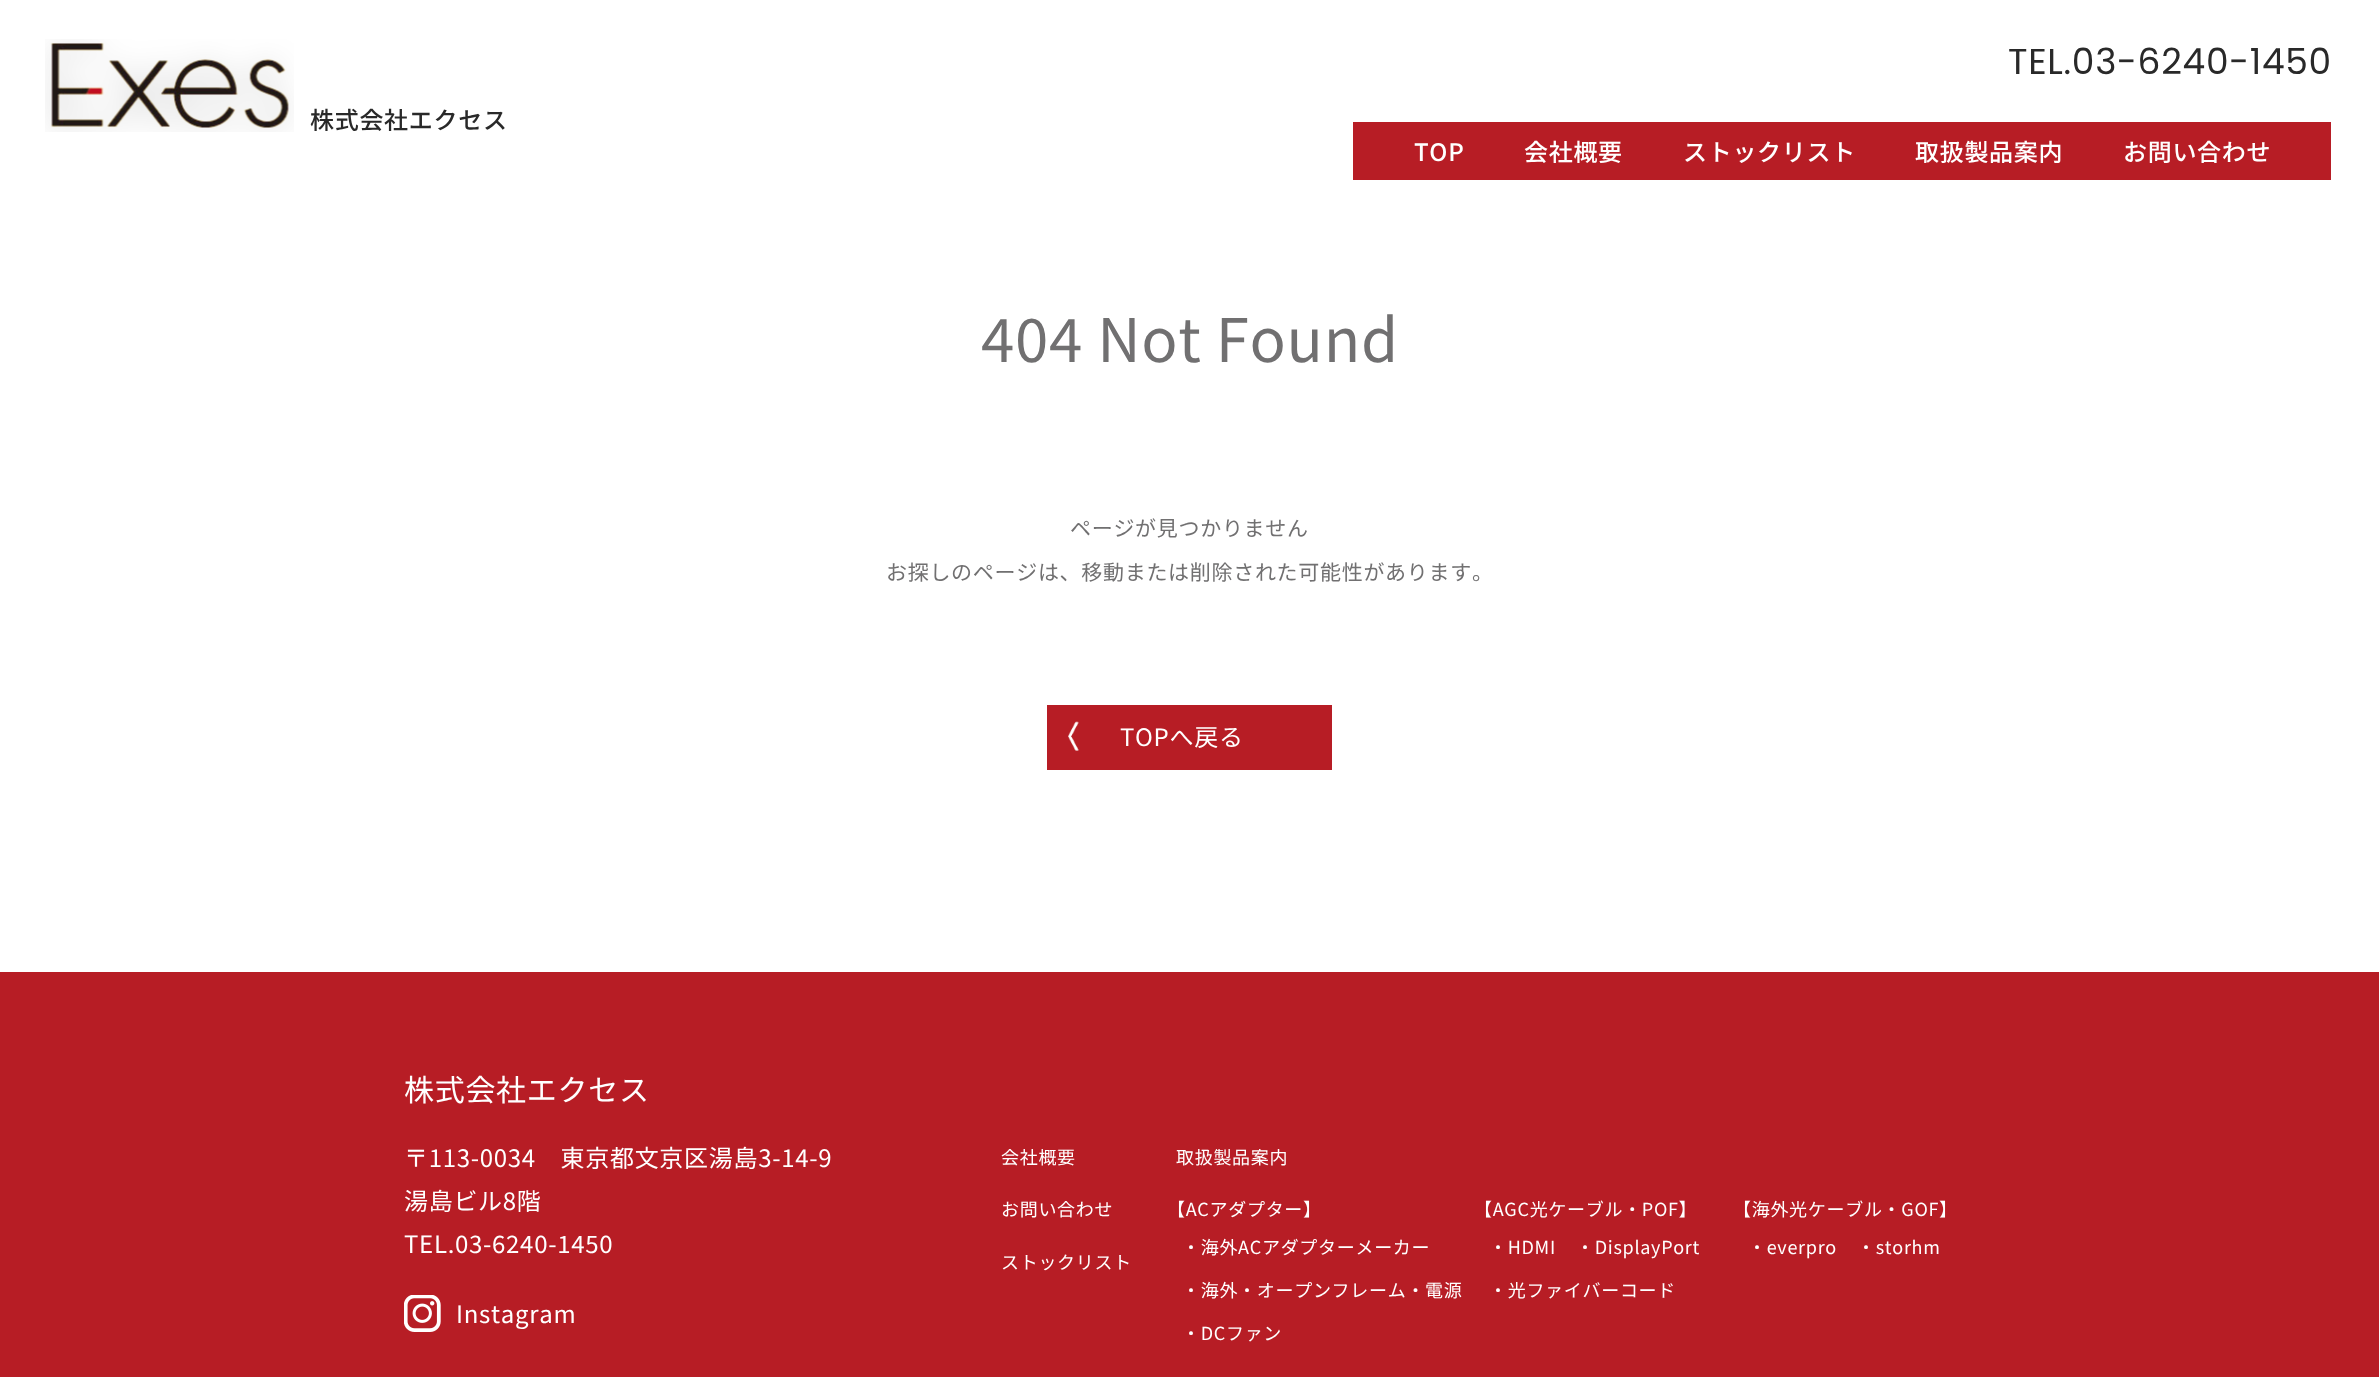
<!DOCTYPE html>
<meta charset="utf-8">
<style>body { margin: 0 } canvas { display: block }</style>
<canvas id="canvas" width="2379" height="1377"></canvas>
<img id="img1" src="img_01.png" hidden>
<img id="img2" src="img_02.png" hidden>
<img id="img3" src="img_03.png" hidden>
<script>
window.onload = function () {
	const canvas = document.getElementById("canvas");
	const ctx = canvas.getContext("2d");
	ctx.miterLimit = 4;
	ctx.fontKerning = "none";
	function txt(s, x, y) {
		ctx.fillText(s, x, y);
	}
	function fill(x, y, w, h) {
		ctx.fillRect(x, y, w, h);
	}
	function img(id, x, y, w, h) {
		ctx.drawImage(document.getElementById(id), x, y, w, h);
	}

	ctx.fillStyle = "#FFFFFF";
	fill(0, 0, 2379, 1377);
	img("img1", 45, 39, 249, 93);
	ctx.fillStyle = "#B71D25";
	fill(1353, 122, 978, 58);
	fill(1047, 705, 285, 65);
	img("img2", 1068, 721, 11, 30);
	fill(0, 972, 2379, 405);
	img("img3", 404, 1295, 37, 37);
	ctx.letterSpacing = "0.7px";
	ctx.font = "500 24px Noto Sans JP";
	ctx.fillStyle = "#292929";
	txt("株式会社エクセス", 310, 129);
	ctx.font = "36px Poppins";
	txt("TEL.03-6240-1450", 2008, 74);
	ctx.font = "500 24px Noto Sans JP";
	ctx.fillStyle = "#FFFFFF";
	txt("TOP", 1414, 161);
	txt("会社概要", 1524, 161);
	txt("ストックリスト", 1683, 161);
	txt("取扱製品案内", 1915, 161);
	txt("お問い合わせ", 2123, 161);
	ctx.font = "60px Noto Sans JP";
	ctx.fillStyle = "#717071";
	txt("404 Not Found", 981, 362);
	ctx.font = "21px Noto Sans JP";
	txt("ページが見つかりません", 1070, 536);
	txt("お探しのページは、移動または削除された可能性があります。", 886, 580);
	ctx.font = "24px Noto Sans JP";
	ctx.fillStyle = "#FFFFFF";
	txt("TOPへ戻る", 1120, 746);
	ctx.font = "30px Noto Sans JP";
	txt("株式会社エクセス", 404, 1101);
	ctx.font = "24px Noto Sans JP";
	txt("〒113-0034　東京都文京区湯島3-14-9", 404, 1167);
	txt("湯島ビル8階", 404, 1210);
	txt("TEL.03-6240-1450", 404, 1253);
	txt("Instagram", 456, 1323);
	ctx.font = "18px Noto Sans JP";
	txt("会社概要", 1001, 1164);
	txt("取扱製品案内", 1176, 1164);
	txt("お問い合わせ", 1001, 1216);
	txt("ストックリスト", 1001, 1269);
	txt("【ACアダプター】", 1167, 1216);
	txt("・海外ACアダプターメーカー", 1182, 1254);
	txt("・海外・オープンフレーム・電源", 1182, 1297);
	txt("・DCファン", 1182, 1340);
	txt("【AGC光ケーブル・POF】", 1474, 1216);
	txt("・HDMI", 1489, 1254);
	txt("・DisplayPort", 1576, 1254);
	txt("・光ファイバーコード", 1489, 1297);
	txt("【海外光ケーブル・GOF】", 1733, 1216);
	txt("・everpro", 1748, 1254);
	txt("・storhm", 1857, 1254);
};
</script>
